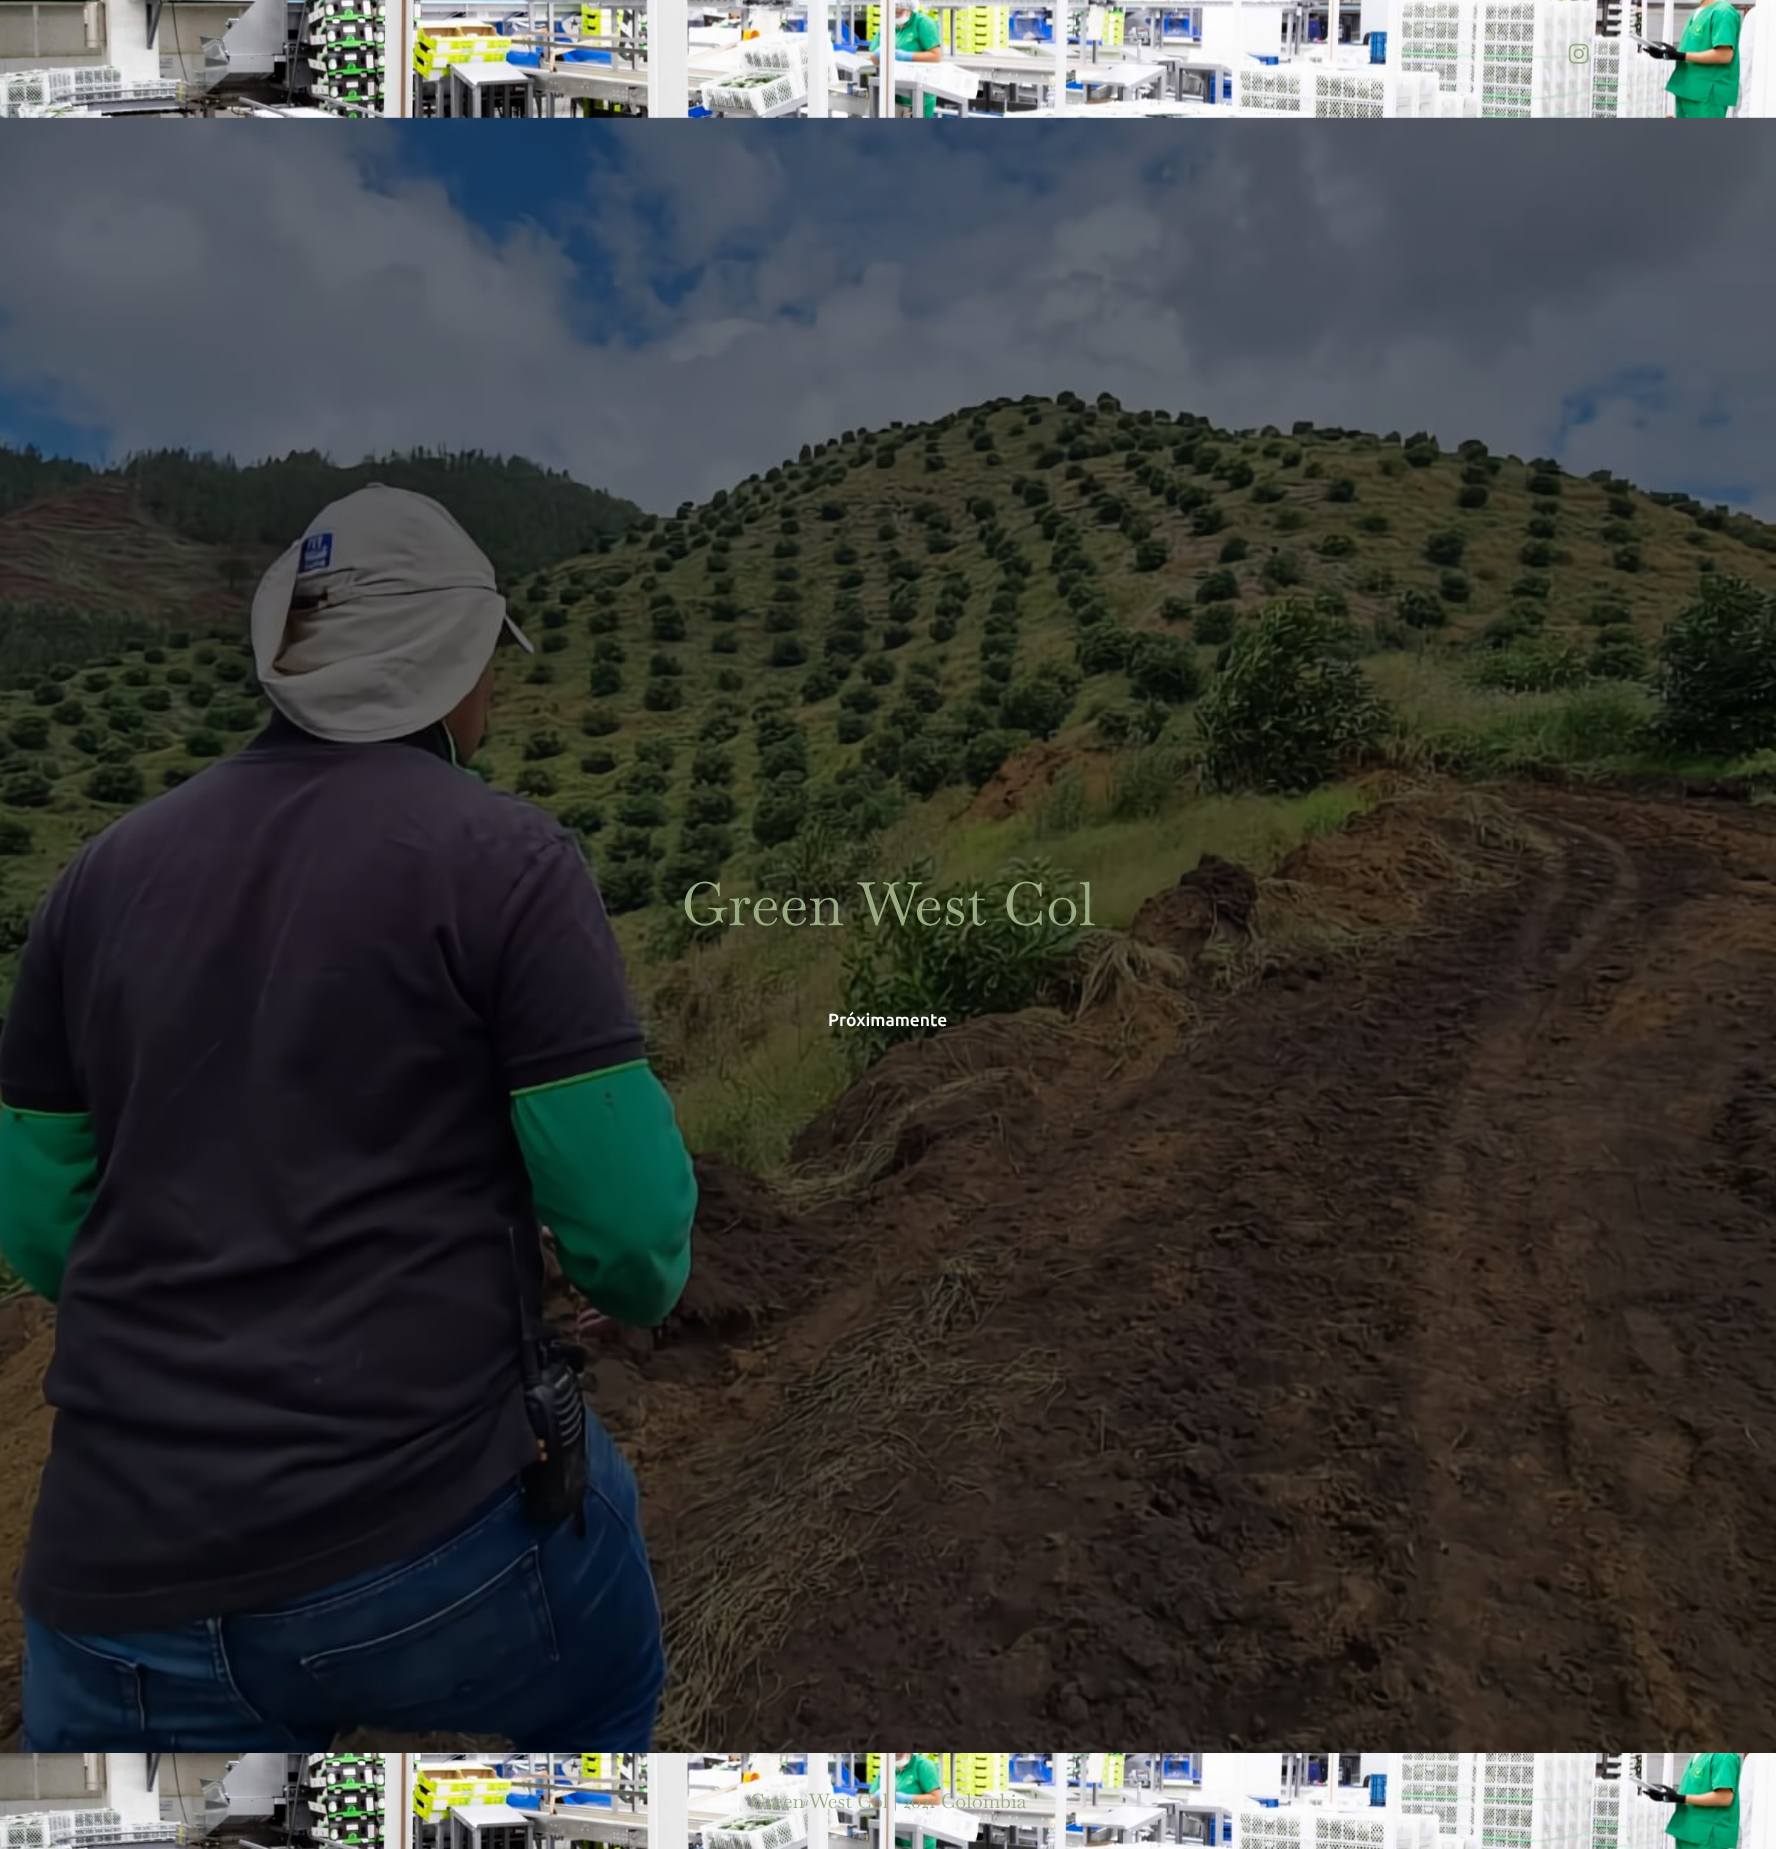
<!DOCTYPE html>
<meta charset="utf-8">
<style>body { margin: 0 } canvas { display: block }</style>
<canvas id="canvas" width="1776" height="1849"></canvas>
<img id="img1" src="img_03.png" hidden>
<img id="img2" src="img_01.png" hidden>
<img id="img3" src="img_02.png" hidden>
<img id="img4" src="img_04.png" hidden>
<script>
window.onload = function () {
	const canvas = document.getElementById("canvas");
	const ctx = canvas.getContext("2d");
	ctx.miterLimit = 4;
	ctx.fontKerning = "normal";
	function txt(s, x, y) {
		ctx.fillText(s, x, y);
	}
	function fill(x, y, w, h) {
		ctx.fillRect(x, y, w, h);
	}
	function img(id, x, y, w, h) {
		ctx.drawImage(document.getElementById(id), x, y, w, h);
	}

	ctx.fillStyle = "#FFFFFF";
	fill(0, 0, 1776, 1849);
	img("img1", 0, 117, 1776, 1636);
	img("img2", 0, 0, 1776, 118);
	img("img3", 1568, 43, 21, 21);
	img("img4", 0, 1753, 1776, 96);
	ctx.font = "60px Baskervville";
	ctx.fillStyle = "#98AB81";
	txt("Green West Col", 681, 925);
	ctx.font = "500 17.5px Ubuntu";
	ctx.fillStyle = "#FFFFFF";
	txt("Próximamente", 828, 1026);
	ctx.font = "20px Baskervville";
	ctx.fillStyle = "#98AB81";
	txt("Green West Col | 2021 Colombia", 750, 1808);
};
</script>
